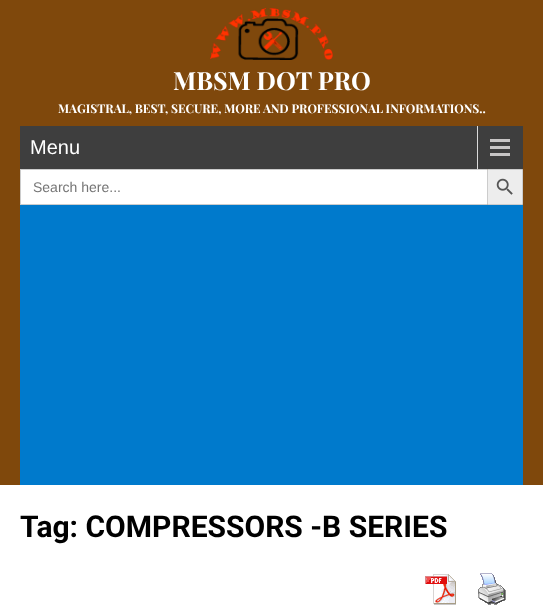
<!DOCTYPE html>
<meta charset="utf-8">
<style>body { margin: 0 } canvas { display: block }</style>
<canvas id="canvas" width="543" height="609"></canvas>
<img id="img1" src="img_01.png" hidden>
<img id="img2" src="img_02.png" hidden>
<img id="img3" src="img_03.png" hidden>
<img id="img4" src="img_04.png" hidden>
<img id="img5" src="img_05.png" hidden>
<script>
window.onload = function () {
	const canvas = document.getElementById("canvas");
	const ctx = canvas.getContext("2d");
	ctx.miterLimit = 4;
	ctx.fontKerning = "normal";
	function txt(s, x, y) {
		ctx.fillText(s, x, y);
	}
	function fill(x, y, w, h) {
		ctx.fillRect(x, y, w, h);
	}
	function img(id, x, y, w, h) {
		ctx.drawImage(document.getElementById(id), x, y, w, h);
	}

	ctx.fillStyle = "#FFFFFF";
	fill(0, 0, 543, 609);
	ctx.fillStyle = "#7F480C";
	fill(0, 0, 543, 485);
	img("img1", 210, 8, 123, 52);
	ctx.fillStyle = "#3E3E3E";
	fill(20, 126, 503, 43);
	img("img2", 477, 126, 33, 43);
	ctx.fillStyle = "#FFFFFF";
	fill(21, 170, 466, 34);
	ctx.fillStyle = "#CCCCCC";
	fill(20, 169, 467, 1);
	fill(20, 204, 467, 1);
	fill(20, 169, 1, 36);
	ctx.fillStyle = "#EDEDED";
	ctx.beginPath();
	ctx.rect(487.5, 169.5, 35, 35);
	ctx.fill();
	ctx.strokeStyle = "#CCCCCC";
	ctx.stroke();
	img("img3", 496, 178, 17, 17);
	ctx.fillStyle = "#007ACC";
	fill(20, 205, 503, 280);
	img("img4", 425, 574, 31, 31);
	img("img5", 478, 573, 28, 32);
	ctx.font = "bold 25px Playfair Display";
	ctx.fillStyle = "#FFFFFF";
	txt("MBSM DOT PRO", 173, 90);
	ctx.font = "bold 12px Playfair Display";
	txt("MAGISTRAL, BEST, SECURE, MORE AND PROFESSIONAL INFORMATIONS..", 58, 113);
	ctx.font = "20px Liberation Sans";
	txt("Menu", 30, 154);
	ctx.font = "14px Liberation Sans";
	ctx.fillStyle = "#757575";
	txt("Search here...", 33, 192);
	ctx.font = "bold 30px Roboto";
	ctx.fillStyle = "#000000";
	txt("Tag: COMPRESSORS -B SERIES", 20, 537);
};
</script>
